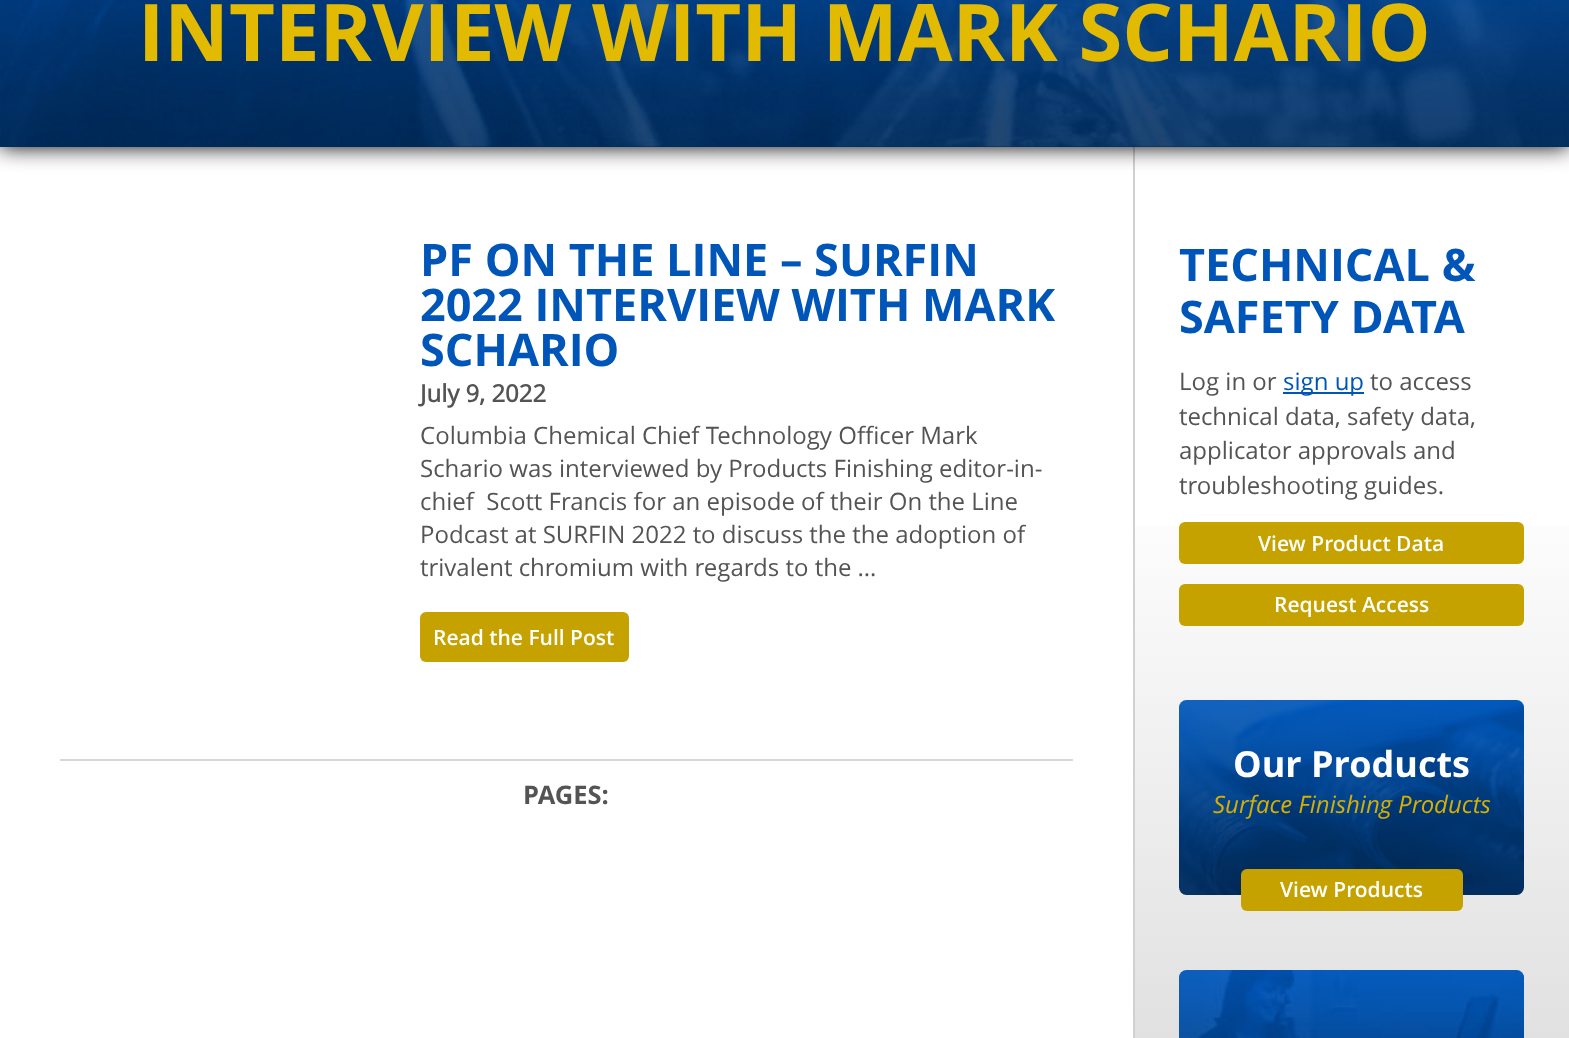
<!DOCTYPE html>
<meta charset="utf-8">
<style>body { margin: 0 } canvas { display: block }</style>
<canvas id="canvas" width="1569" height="1038"></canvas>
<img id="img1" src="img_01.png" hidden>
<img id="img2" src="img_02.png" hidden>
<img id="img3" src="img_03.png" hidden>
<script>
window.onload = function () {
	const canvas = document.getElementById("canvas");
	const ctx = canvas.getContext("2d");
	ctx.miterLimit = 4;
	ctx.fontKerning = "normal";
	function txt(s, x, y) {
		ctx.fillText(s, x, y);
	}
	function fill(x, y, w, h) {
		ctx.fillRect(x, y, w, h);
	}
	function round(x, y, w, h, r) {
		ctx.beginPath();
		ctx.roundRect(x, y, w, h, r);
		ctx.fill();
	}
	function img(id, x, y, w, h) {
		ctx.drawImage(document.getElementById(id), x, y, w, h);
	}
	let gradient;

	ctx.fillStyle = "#FFFFFF";
	fill(0, 0, 1569, 1038);
	ctx.fillStyle = "#D1D1D1";
	fill(1133, 147, 2, 891);
	ctx.fillStyle = "#000000";
	ctx.filter = "blur(11px)";
	ctx.beginPath();
	ctx.rect(0, -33, 1569, 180);
	ctx.fill();
	ctx.filter = "none";
	gradient = ctx.createLinearGradient(785, -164, 785, 147);
	gradient.addColorStop(0, "#0053B5");
	gradient.addColorStop(1, "#002C5D");
	ctx.fillStyle = gradient;
	fill(0, 146, 1569, 1);
	img("img1", 0, 0, 1569, 147);
	ctx.fillStyle = "#C5A200";
	round(420, 612, 209, 50, 6);
	ctx.fillStyle = "#D7D7D7";
	fill(60, 759, 1013, 2);
	gradient = ctx.createLinearGradient(1352, 147, 1352, 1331);
	gradient.addColorStop(0, "#FFFFFF");
	gradient.addColorStop(0.28, "#FFFFFF");
	gradient.addColorStop(1, "#D1D1D1");
	ctx.fillStyle = gradient;
	fill(1135, 525, 434, 513);
	ctx.fillStyle = "#0056B8";
	fill(1283, 392, 81, 2);
	ctx.fillStyle = "#C5A200";
	round(1179, 522, 345, 42, 6);
	round(1179, 584, 345, 42, 6);
	img("img2", 1179, 700, 345, 195);
	round(1241, 869, 222, 42, 6);
	img("img3", 1179, 970, 345, 68);
	ctx.font = "bold 79.5px Open Sans";
	ctx.fillStyle = "#E2BA01";
	txt("INTERVIEW WITH MARK SCHARIO", 138, 61);
	ctx.font = "bold 45px Open Sans";
	ctx.fillStyle = "#0056B8";
	txt("PF ON THE LINE – SURFIN", 420, 276);
	txt("2022 INTERVIEW WITH MARK", 420, 321);
	txt("SCHARIO", 420, 366);
	ctx.font = "bold 24px 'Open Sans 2'";
	ctx.fillStyle = "#545454";
	txt("July 9, 2022", 420, 402);
	ctx.font = "24px Open Sans";
	txt("Columbia Chemical Chief Technology Officer Mark", 420, 444);
	txt("Schario was interviewed by Products Finishing editor-in-", 420, 477);
	txt("chief  Scott Francis for an episode of their On the Line", 420, 510);
	txt("Podcast at SURFIN 2022 to discuss the the adoption of", 420, 543);
	txt("trivalent chromium with regards to the …", 420, 576);
	ctx.font = "600 21px Open Sans";
	ctx.fillStyle = "#FFFFFF";
	txt("Read the Full Post", 433, 645);
	ctx.font = "bold 25.5px Open Sans";
	ctx.fillStyle = "#545454";
	txt("PAGES:", 523, 804);
	ctx.font = "bold 45px Open Sans";
	ctx.fillStyle = "#0056B8";
	txt("TECHNICAL &", 1179, 281);
	txt("SAFETY DATA", 1179, 333);
	ctx.font = "24px Open Sans";
	ctx.fillStyle = "#545454";
	txt("Log in or", 1179, 390);
	ctx.fillStyle = "#0056B8";
	txt("sign up", 1283, 390);
	ctx.fillStyle = "#545454";
	txt("to access", 1370, 390);
	txt("technical data, safety data,", 1179, 425);
	txt("applicator approvals and", 1179, 459);
	txt("troubleshooting guides.", 1179, 494);
	ctx.font = "600 21px Open Sans";
	ctx.fillStyle = "#FFFFFF";
	txt("View Product Data", 1258, 551);
	txt("Request Access", 1274, 612);
	ctx.font = "bold 36px Open Sans";
	txt("Our Products", 1233, 777);
	ctx.font = "italic 24px Open Sans";
	ctx.fillStyle = "#D5AF01";
	txt("Surface Finishing Products", 1213, 813);
	ctx.font = "600 21px Open Sans";
	ctx.fillStyle = "#FFFFFF";
	txt("View Products", 1280, 897);
};
</script>
